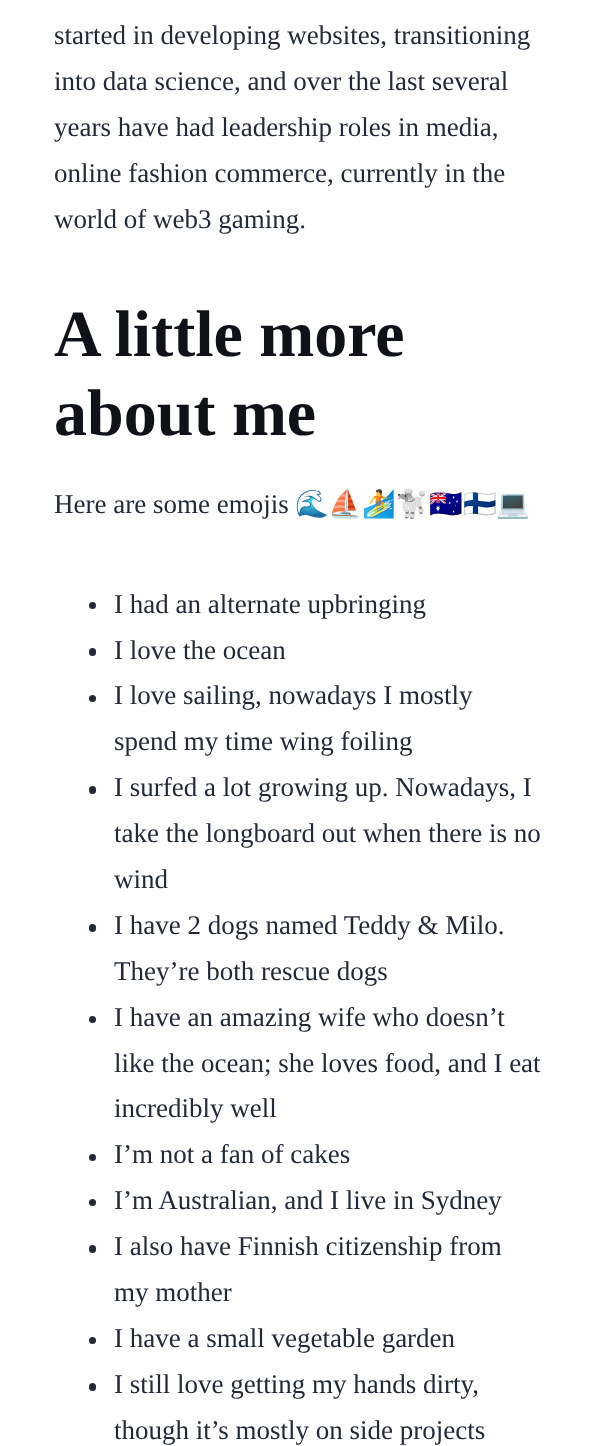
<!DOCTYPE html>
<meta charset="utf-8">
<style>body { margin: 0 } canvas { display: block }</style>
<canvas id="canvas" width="595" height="1446"></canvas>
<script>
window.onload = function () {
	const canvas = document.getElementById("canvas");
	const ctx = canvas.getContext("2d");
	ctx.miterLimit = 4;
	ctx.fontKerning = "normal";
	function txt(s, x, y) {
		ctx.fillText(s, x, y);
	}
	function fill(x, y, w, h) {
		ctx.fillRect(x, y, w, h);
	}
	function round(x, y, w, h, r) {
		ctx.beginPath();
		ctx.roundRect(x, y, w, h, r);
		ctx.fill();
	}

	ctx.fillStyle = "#FFFFFF";
	fill(0, 0, 595, 1446);
	ctx.fillStyle = "#222939";
	ctx.beginPath();
	ctx.arc(92.5, 605.5, 3.5, 0, Math.PI * 2);
	ctx.fill();
	round(89, 648, 7, 8, 3.5);
	ctx.beginPath();
	ctx.arc(92.5, 698.5, 3.5, 0, Math.PI * 2);
	ctx.fill();
	round(89, 786, 7, 8, 3.5);
	round(89, 924, 7, 8, 3.5);
	ctx.beginPath();
	ctx.arc(92.5, 1019.5, 3.5, 0, Math.PI * 2);
	ctx.fill();
	ctx.beginPath();
	ctx.arc(92.5, 1157.5, 3.5, 0, Math.PI * 2);
	ctx.fill();
	ctx.beginPath();
	ctx.arc(92.5, 1202.5, 3.5, 0, Math.PI * 2);
	ctx.fill();
	round(89, 1245, 7, 8, 3.5);
	ctx.beginPath();
	ctx.arc(92.5, 1340.5, 3.5, 0, Math.PI * 2);
	ctx.fill();
	round(89, 1383, 7, 8, 3.5);
	ctx.font = "27px Liberation Serif";
	txt("started in developing websites, transitioning", 54, 44);
	txt("into data science, and over the last several", 54, 90);
	txt("years have had leadership roles in media,", 54, 136);
	txt("online fashion commerce, currently in the", 54, 182);
	txt("world of web3 gaming.", 54, 228);
	ctx.font = "bold 66px Liberation Serif";
	ctx.fillStyle = "#0F1219";
	txt("A little more", 54, 356);
	txt("about me", 54, 435);
	ctx.font = "27px Liberation Serif";
	ctx.fillStyle = "#222939";
	txt("Here are some emojis", 54, 513);
	ctx.font = "27px Noto Color Emoji";
	txt("🌊⛵🏄🐩🇦🇺🇫🇮💻", 295, 513);
	ctx.font = "27px Liberation Serif";
	txt("I had an alternate upbringing", 114, 613);
	txt("I love the ocean", 114, 659);
	txt("I love sailing, nowadays I mostly", 114, 704);
	txt("spend my time wing foiling", 114, 750);
	txt("I surfed a lot growing up. Nowadays, I", 114, 796);
	txt("take the longboard out when there is no", 114, 842);
	txt("wind", 114, 888);
	txt("I have 2 dogs named Teddy & Milo.", 114, 934);
	txt("They’re both rescue dogs", 114, 980);
	txt("I have an amazing wife who doesn’t", 114, 1026);
	txt("like the ocean; she loves food, and I eat", 114, 1072);
	txt("incredibly well", 114, 1117);
	txt("I’m not a fan of cakes", 114, 1163);
	txt("I’m Australian, and I live in Sydney", 114, 1209);
	txt("I also have Finnish citizenship from", 114, 1255);
	txt("my mother", 114, 1301);
	txt("I have a small vegetable garden", 114, 1347);
	txt("I still love getting my hands dirty,", 114, 1393);
	txt("though it’s mostly on side projects", 114, 1439);
};
</script>
